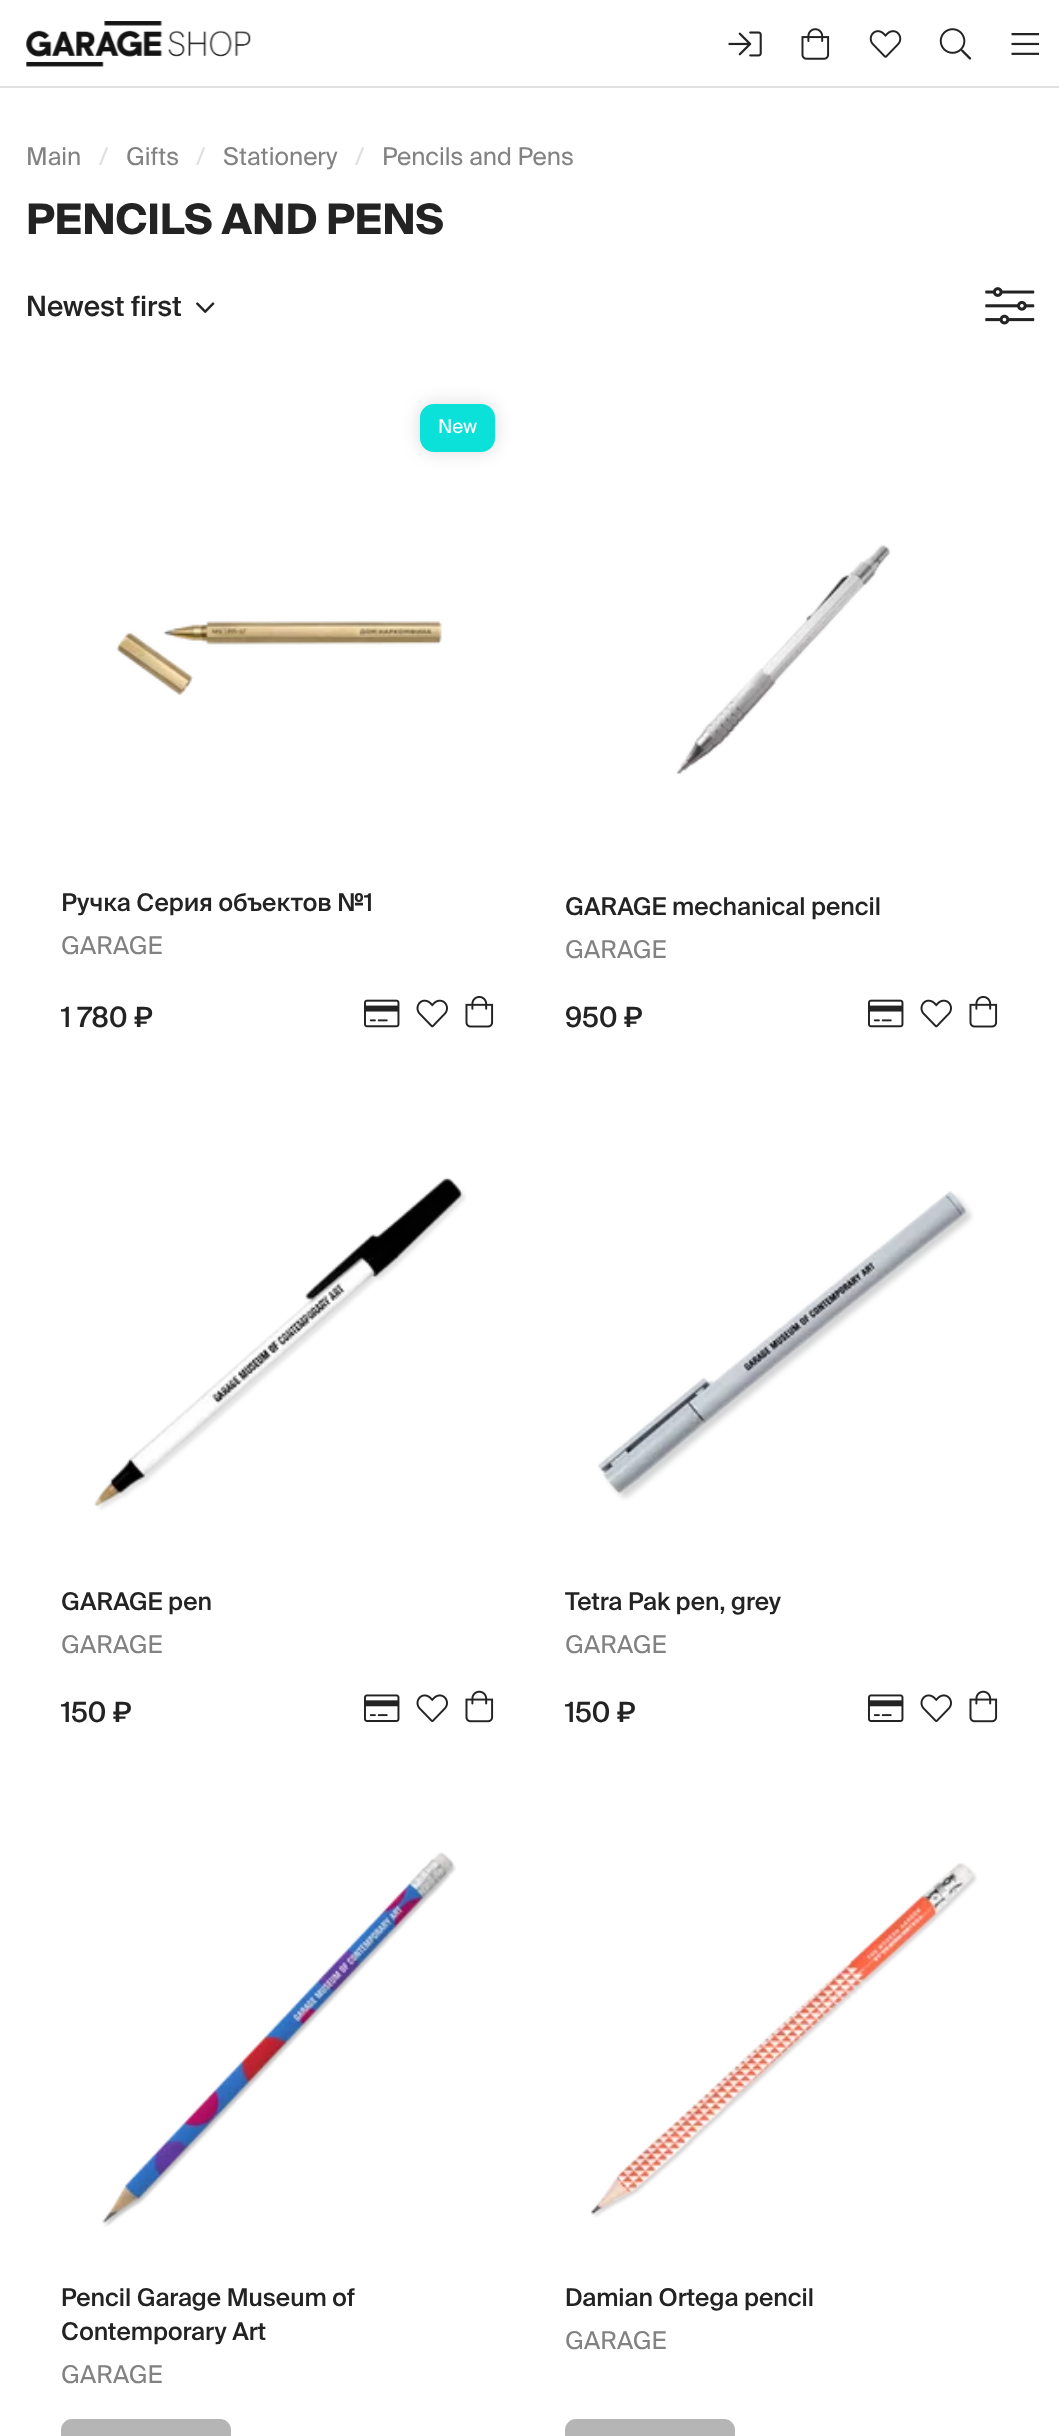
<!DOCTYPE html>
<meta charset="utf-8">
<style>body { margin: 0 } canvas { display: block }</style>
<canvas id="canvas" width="1059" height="2436"></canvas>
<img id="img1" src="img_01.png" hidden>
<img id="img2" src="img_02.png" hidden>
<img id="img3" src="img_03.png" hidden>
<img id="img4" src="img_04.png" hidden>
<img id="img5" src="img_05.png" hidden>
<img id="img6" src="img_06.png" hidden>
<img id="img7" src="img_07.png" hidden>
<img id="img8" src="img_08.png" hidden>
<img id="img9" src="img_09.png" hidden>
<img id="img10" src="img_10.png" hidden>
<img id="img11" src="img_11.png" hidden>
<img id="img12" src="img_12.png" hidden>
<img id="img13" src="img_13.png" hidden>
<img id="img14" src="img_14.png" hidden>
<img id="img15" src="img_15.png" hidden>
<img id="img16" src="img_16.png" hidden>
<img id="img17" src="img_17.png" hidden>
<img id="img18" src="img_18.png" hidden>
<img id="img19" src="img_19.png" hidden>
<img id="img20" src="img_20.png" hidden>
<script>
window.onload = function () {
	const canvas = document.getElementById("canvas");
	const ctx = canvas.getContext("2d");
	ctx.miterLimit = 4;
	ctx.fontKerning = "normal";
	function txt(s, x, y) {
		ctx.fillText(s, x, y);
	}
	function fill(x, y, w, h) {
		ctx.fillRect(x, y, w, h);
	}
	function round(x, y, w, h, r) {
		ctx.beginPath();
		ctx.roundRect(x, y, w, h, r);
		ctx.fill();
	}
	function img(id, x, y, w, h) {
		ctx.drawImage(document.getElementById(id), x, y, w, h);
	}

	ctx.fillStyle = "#FFFFFF";
	fill(0, 0, 1059, 2436);
	ctx.fillStyle = "#E0E0E0";
	fill(0, 86, 1059, 2);
	img("img1", 26, 21, 225, 46);
	img("img2", 728, 31, 34, 26);
	img("img3", 801, 28, 29, 32);
	img("img4", 869, 30, 33, 28);
	img("img5", 939, 28, 33, 32);
	img("img6", 1011, 33, 29, 22);
	img("img7", 196, 302, 19, 11);
	img("img8", 985, 287, 50, 38);
	ctx.fillStyle = "rgba(0, 0, 0, 0.15)";
	ctx.filter = "blur(9px)";
	ctx.beginPath();
	ctx.roundRect(420, 404, 75, 48, 14);
	ctx.fill();
	ctx.filter = "none";
	ctx.fillStyle = "#0CE1D9";
	round(420, 404, 75, 48, 14);
	img("img9", 116, 621, 326, 75);
	img("img10", 364, 999, 36, 29);
	img("img11", 416, 999, 32, 29);
	img("img12", 465, 996, 29, 32);
	img("img13", 676, 544, 215, 230);
	img("img10", 868, 999, 36, 29);
	img("img11", 920, 999, 32, 29);
	img("img12", 969, 996, 29, 32);
	img("img14", 94, 1177, 372, 333);
	img("img15", 364, 1694, 36, 28);
	img("img16", 416, 1694, 32, 28);
	img("img17", 465, 1690, 29, 33);
	img("img18", 598, 1191, 376, 310);
	img("img15", 868, 1694, 36, 28);
	img("img16", 920, 1694, 32, 28);
	img("img17", 969, 1690, 29, 33);
	img("img19", 102, 1852, 354, 375);
	ctx.fillStyle = "#B5B5B5";
	ctx.beginPath();
	ctx.roundRect(62, 2420, 168, 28, 10);
	ctx.fill();
	ctx.strokeStyle = "#B5B5B5";
	ctx.lineWidth = 2;
	ctx.stroke();
	img("img20", 591, 1863, 386, 355);
	ctx.beginPath();
	ctx.roundRect(566, 2420, 168, 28, 10);
	ctx.fill();
	ctx.stroke();
	ctx.font = "24.5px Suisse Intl";
	ctx.fillStyle = "#828282";
	txt("Main", 26, 165);
	ctx.fillStyle = "#E0E0E0";
	txt("/", 99, 165);
	ctx.fillStyle = "#828282";
	txt("Gifts", 126, 165);
	ctx.fillStyle = "#E0E0E0";
	txt("/", 196, 165);
	ctx.fillStyle = "#828282";
	txt("Stationery", 223, 165);
	ctx.fillStyle = "#E0E0E0";
	txt("/", 355, 165);
	ctx.fillStyle = "#828282";
	txt("Pencils and Pens", 382, 165);
	ctx.font = "bold 42px Suisse Intl";
	ctx.fillStyle = "#232323";
	txt("PENCILS AND PENS", 26, 234);
	ctx.font = "500 28px Suisse Intl";
	txt("Newest first", 26, 316);
	ctx.font = "19px Suisse Intl";
	ctx.fillStyle = "#FFFFFF";
	txt("New", 438, 433);
	ctx.font = "500 24.5px Suisse Intl";
	ctx.fillStyle = "#232323";
	txt("Ручка Серия объектов №1", 61, 911);
	ctx.font = "24.5px Suisse Intl";
	ctx.fillStyle = "#828282";
	txt("GARAGE", 61, 954);
	ctx.font = "500 28px Suisse Intl";
	ctx.fillStyle = "#232323";
	txt("1 780 ₽", 61, 1027);
	ctx.font = "500 24.5px Suisse Intl";
	txt("GARAGE mechanical pencil", 565, 915);
	ctx.font = "24.5px Suisse Intl";
	ctx.fillStyle = "#828282";
	txt("GARAGE", 565, 958);
	ctx.font = "500 28px Suisse Intl";
	ctx.fillStyle = "#232323";
	txt("950 ₽", 565, 1027);
	ctx.font = "500 24.5px Suisse Intl";
	txt("GARAGE pen", 61, 1610);
	ctx.font = "24.5px Suisse Intl";
	ctx.fillStyle = "#828282";
	txt("GARAGE", 61, 1653);
	ctx.font = "500 28px Suisse Intl";
	ctx.fillStyle = "#232323";
	txt("150 ₽", 61, 1722);
	ctx.font = "500 24.5px Suisse Intl";
	txt("Tetra Pak pen, grey", 565, 1610);
	ctx.font = "24.5px Suisse Intl";
	ctx.fillStyle = "#828282";
	txt("GARAGE", 565, 1653);
	ctx.font = "500 28px Suisse Intl";
	ctx.fillStyle = "#232323";
	txt("150 ₽", 565, 1722);
	ctx.font = "500 24.5px Suisse Intl";
	txt("Pencil Garage Museum of", 61, 2306);
	txt("Contemporary Art", 61, 2340);
	ctx.font = "24.5px Suisse Intl";
	ctx.fillStyle = "#828282";
	txt("GARAGE", 61, 2383);
	ctx.font = "500 24.5px Suisse Intl";
	ctx.fillStyle = "#232323";
	txt("Damian Ortega pencil", 565, 2306);
	ctx.font = "24.5px Suisse Intl";
	ctx.fillStyle = "#828282";
	txt("GARAGE", 565, 2349);
};
</script>
